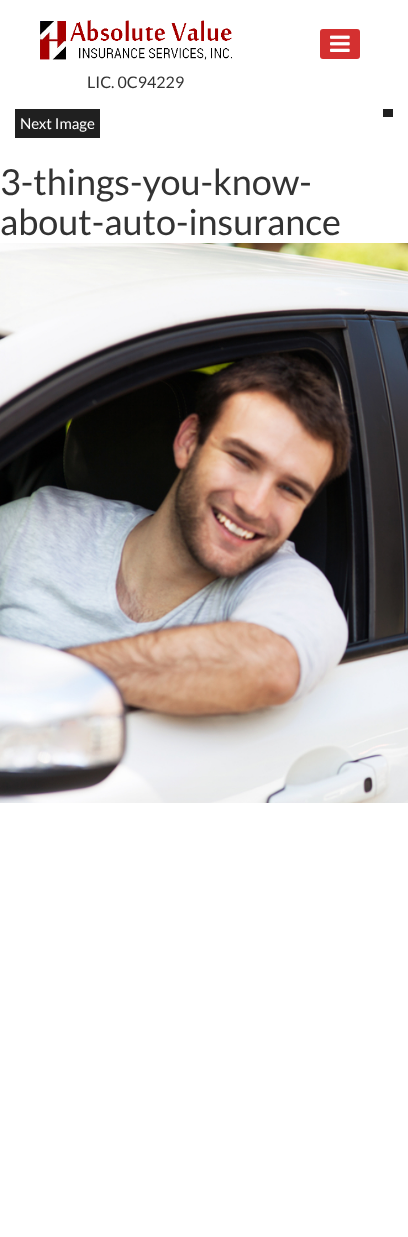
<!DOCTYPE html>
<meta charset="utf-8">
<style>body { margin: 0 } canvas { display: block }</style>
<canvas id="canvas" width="408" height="1237"></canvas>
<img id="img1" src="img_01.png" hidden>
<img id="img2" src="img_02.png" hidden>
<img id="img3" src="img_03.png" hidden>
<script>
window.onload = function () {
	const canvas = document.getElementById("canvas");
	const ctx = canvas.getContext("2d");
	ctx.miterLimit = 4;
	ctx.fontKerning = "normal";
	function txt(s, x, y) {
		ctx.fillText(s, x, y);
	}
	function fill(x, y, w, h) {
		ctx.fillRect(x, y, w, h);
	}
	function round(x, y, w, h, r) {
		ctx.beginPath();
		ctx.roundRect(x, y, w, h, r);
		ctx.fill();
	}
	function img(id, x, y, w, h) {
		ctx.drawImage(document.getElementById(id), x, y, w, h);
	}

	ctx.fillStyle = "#FFFFFF";
	fill(0, 0, 408, 1237);
	ctx.fillStyle = "#D43030";
	round(320, 29, 40, 30, 3);
	img("img1", 330, 35, 20, 17);
	img("img2", 40, 20, 192, 40);
	ctx.fillStyle = "#202020";
	fill(383, 109, 10, 8);
	fill(15, 109, 85, 29);
	img("img3", 0, 243, 408, 560);
	ctx.font = "16px Lato";
	ctx.fillStyle = "#333333";
	txt("LIC. 0C94229", 87, 88);
	ctx.font = "15px Lato";
	ctx.fillStyle = "#FFFFFF";
	txt("Next Image", 20, 129);
	ctx.font = "36px Lato";
	ctx.fillStyle = "#333333";
	txt("3-things-you-know-", 0, 195);
	txt("about-auto-insurance", 0, 235);
};
</script>
